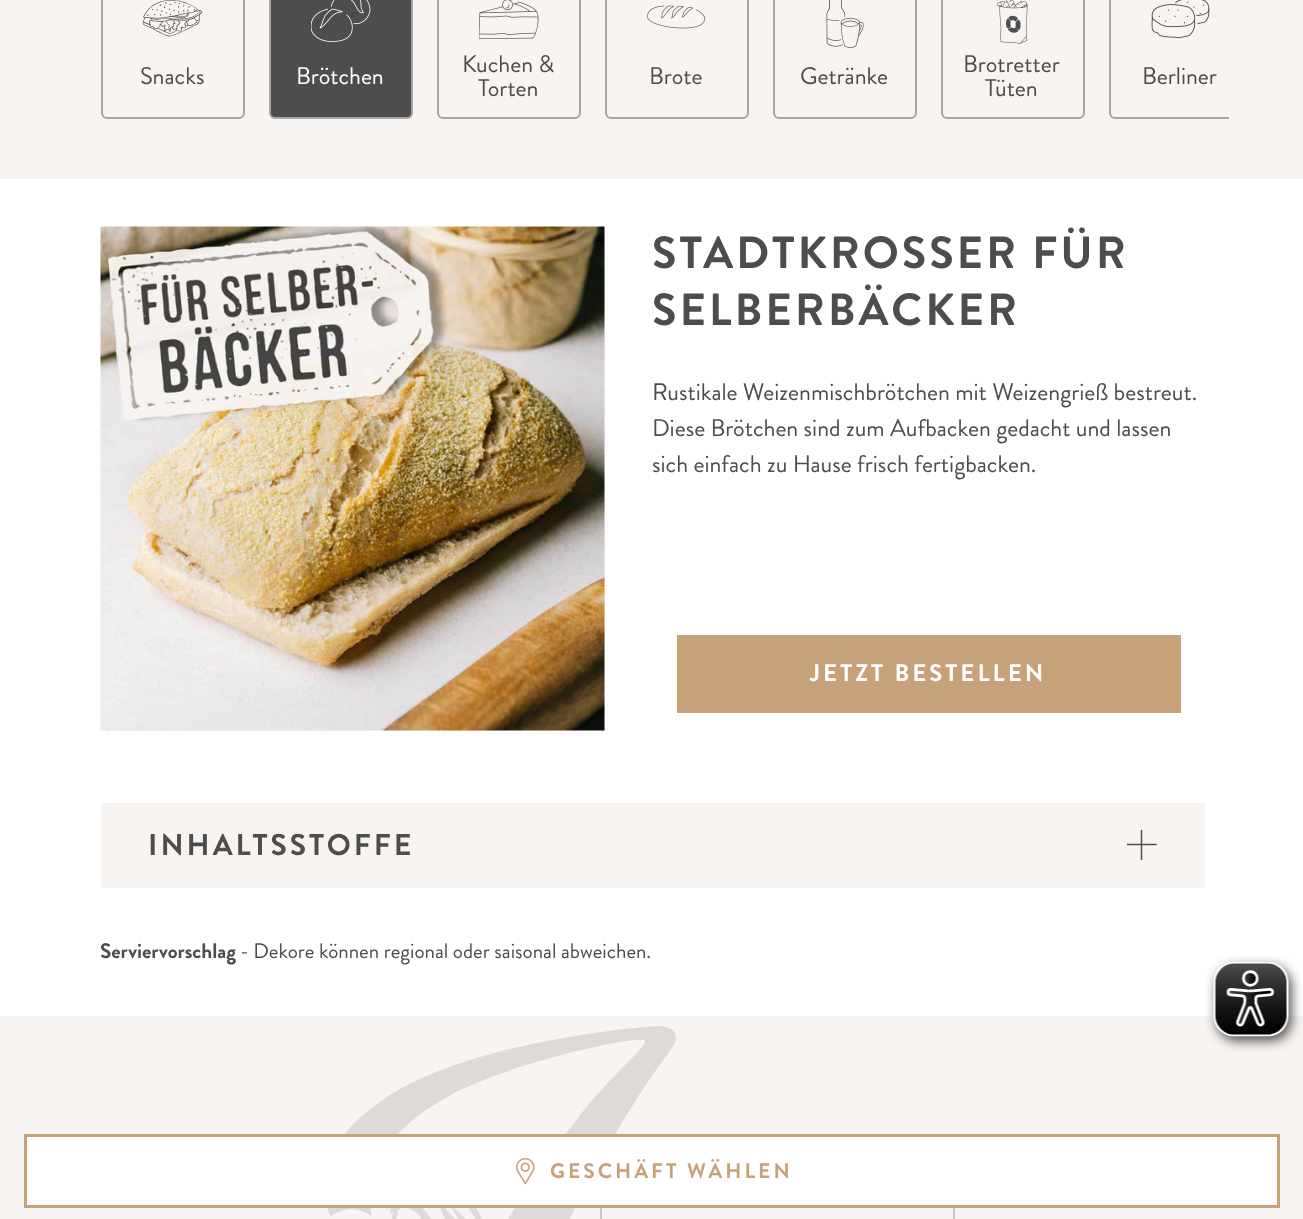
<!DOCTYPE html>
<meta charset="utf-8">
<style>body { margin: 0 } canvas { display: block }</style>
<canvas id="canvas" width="1303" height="1219"></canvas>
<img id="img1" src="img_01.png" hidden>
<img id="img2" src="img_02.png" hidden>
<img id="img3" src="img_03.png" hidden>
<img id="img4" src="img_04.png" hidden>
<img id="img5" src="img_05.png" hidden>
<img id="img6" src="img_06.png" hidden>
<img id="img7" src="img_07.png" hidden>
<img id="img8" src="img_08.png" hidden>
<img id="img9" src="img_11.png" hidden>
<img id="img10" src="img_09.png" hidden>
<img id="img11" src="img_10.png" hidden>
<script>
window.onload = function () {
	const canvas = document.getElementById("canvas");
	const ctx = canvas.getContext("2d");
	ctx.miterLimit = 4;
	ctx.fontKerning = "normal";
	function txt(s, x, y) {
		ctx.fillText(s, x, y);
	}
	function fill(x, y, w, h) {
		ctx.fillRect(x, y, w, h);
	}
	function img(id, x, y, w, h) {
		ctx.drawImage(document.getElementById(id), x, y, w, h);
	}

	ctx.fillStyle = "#FFFFFF";
	fill(0, 0, 1303, 1219);
	ctx.fillStyle = "#F8F4F1";
	fill(0, 0, 1303, 179);
	ctx.beginPath();
	ctx.roundRect(102, -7, 142, 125, 5);
	ctx.strokeStyle = "#A6A6A6";
	ctx.lineWidth = 2;
	ctx.stroke();
	img("img1", 142, 0, 61, 37);
	ctx.fillStyle = "#4D4D4D";
	ctx.beginPath();
	ctx.roundRect(270, -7, 142, 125, 5);
	ctx.fill();
	ctx.stroke();
	img("img2", 311, 0, 60, 42);
	ctx.beginPath();
	ctx.roundRect(438, -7, 142, 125, 5);
	ctx.stroke();
	img("img3", 479, 0, 60, 40);
	ctx.beginPath();
	ctx.roundRect(606, -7, 142, 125, 5);
	ctx.stroke();
	img("img4", 647, 5, 59, 24);
	ctx.beginPath();
	ctx.roundRect(774, -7, 142, 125, 5);
	ctx.stroke();
	img("img5", 826, 0, 38, 48);
	ctx.beginPath();
	ctx.roundRect(942, -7, 142, 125, 5);
	ctx.stroke();
	img("img6", 997, 0, 31, 44);
	ctx.save();
	ctx.beginPath();
	ctx.rect(101, 0, 1128, 119);
	ctx.clip();
	ctx.beginPath();
	ctx.roundRect(1110, -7, 142, 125, 5);
	ctx.stroke();
	ctx.restore();
	img("img7", 1151, 0, 59, 39);
	ctx.fillStyle = "#F8F4F1";
	fill(101, 227, 504, 504);
	img("img8", 100, 226, 505, 505);
	ctx.fillStyle = "#C7A17A";
	fill(677, 635, 504, 78);
	ctx.fillStyle = "#F8F4F1";
	fill(101, 803, 1104, 85);
	ctx.save();
	ctx.beginPath();
	ctx.rect(1127, 830, 30, 30);
	ctx.clip();
	ctx.beginPath();
	ctx.moveTo(1141.5, 829.5);
	ctx.lineTo(1141.5, 859.5);
	ctx.moveTo(1127, 844.5);
	ctx.lineTo(1156, 844.5);
	ctx.strokeStyle = "#4D4D4D";
	ctx.lineWidth = 1.5;
	ctx.lineCap = "round";
	ctx.lineJoin = "round";
	ctx.stroke();
	ctx.restore();
	fill(0, 1016, 1303, 203);
	img("img9", 327, 1026, 349, 193);
	ctx.fillStyle = "#FFFFFF";
	ctx.beginPath();
	ctx.rect(25.5, 1135.5, 1253, 71);
	ctx.fill();
	ctx.strokeStyle = "#C7A17A";
	ctx.lineWidth = 3;
	ctx.stroke();
	img("img10", 516, 1158, 19, 27);
	img("img11", 1206, 956, 96, 96);
	ctx.fillStyle = "#C9C9C9";
	fill(600, 1208, 2, 11);
	fill(953, 1208, 2, 11);
	ctx.font = "24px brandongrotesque";
	ctx.fillStyle = "#4D4D4D";
	txt("Snacks", 140, 84);
	ctx.fillStyle = "#FFFFFF";
	txt("Brötchen", 296, 84);
	ctx.fillStyle = "#4D4D4D";
	txt("Kuchen &", 462, 72);
	txt("Torten", 478, 96);
	txt("Brote", 649, 84);
	txt("Getränke", 800, 84);
	txt("Brotretter", 963, 72);
	txt("Tüten", 985, 96);
	txt("Berliner", 1142, 84);
	ctx.letterSpacing = "3px";
	ctx.font = "bold 45px brandongrotesque";
	txt("STADTKROSSER FÜR", 652, 268);
	txt("SELBERBÄCKER", 652, 325);
	ctx.letterSpacing = "0px";
	ctx.font = "24px brandongrotesque";
	txt("Rustikale Weizenmischbrötchen mit Weizengrieß bestreut.", 652, 400);
	txt("Diese Brötchen sind zum Aufbacken gedacht und lassen", 652, 436);
	txt("sich einfach zu Hause frisch fertigbacken.", 652, 472);
	ctx.letterSpacing = "3px";
	ctx.font = "bold 24px brandongrotesque";
	ctx.fillStyle = "#FFFFFF";
	txt("JETZT BESTELLEN", 810, 681);
	ctx.font = "bold 30px brandongrotesque";
	ctx.fillStyle = "#4D4D4D";
	txt("INHALTSSTOFFE", 148, 855);
	ctx.letterSpacing = "0px";
	ctx.font = "bold 21px brandongrotesque";
	txt("Serviervorschlag", 100, 958);
	ctx.font = "21px brandongrotesque";
	txt("- Dekore können regional oder saisonal abweichen.", 240, 958);
	ctx.letterSpacing = "3px";
	ctx.font = "bold 21px brandongrotesque";
	ctx.fillStyle = "#C7A17A";
	txt("GESCHÄFT WÄHLEN", 550, 1178);
};
</script>
